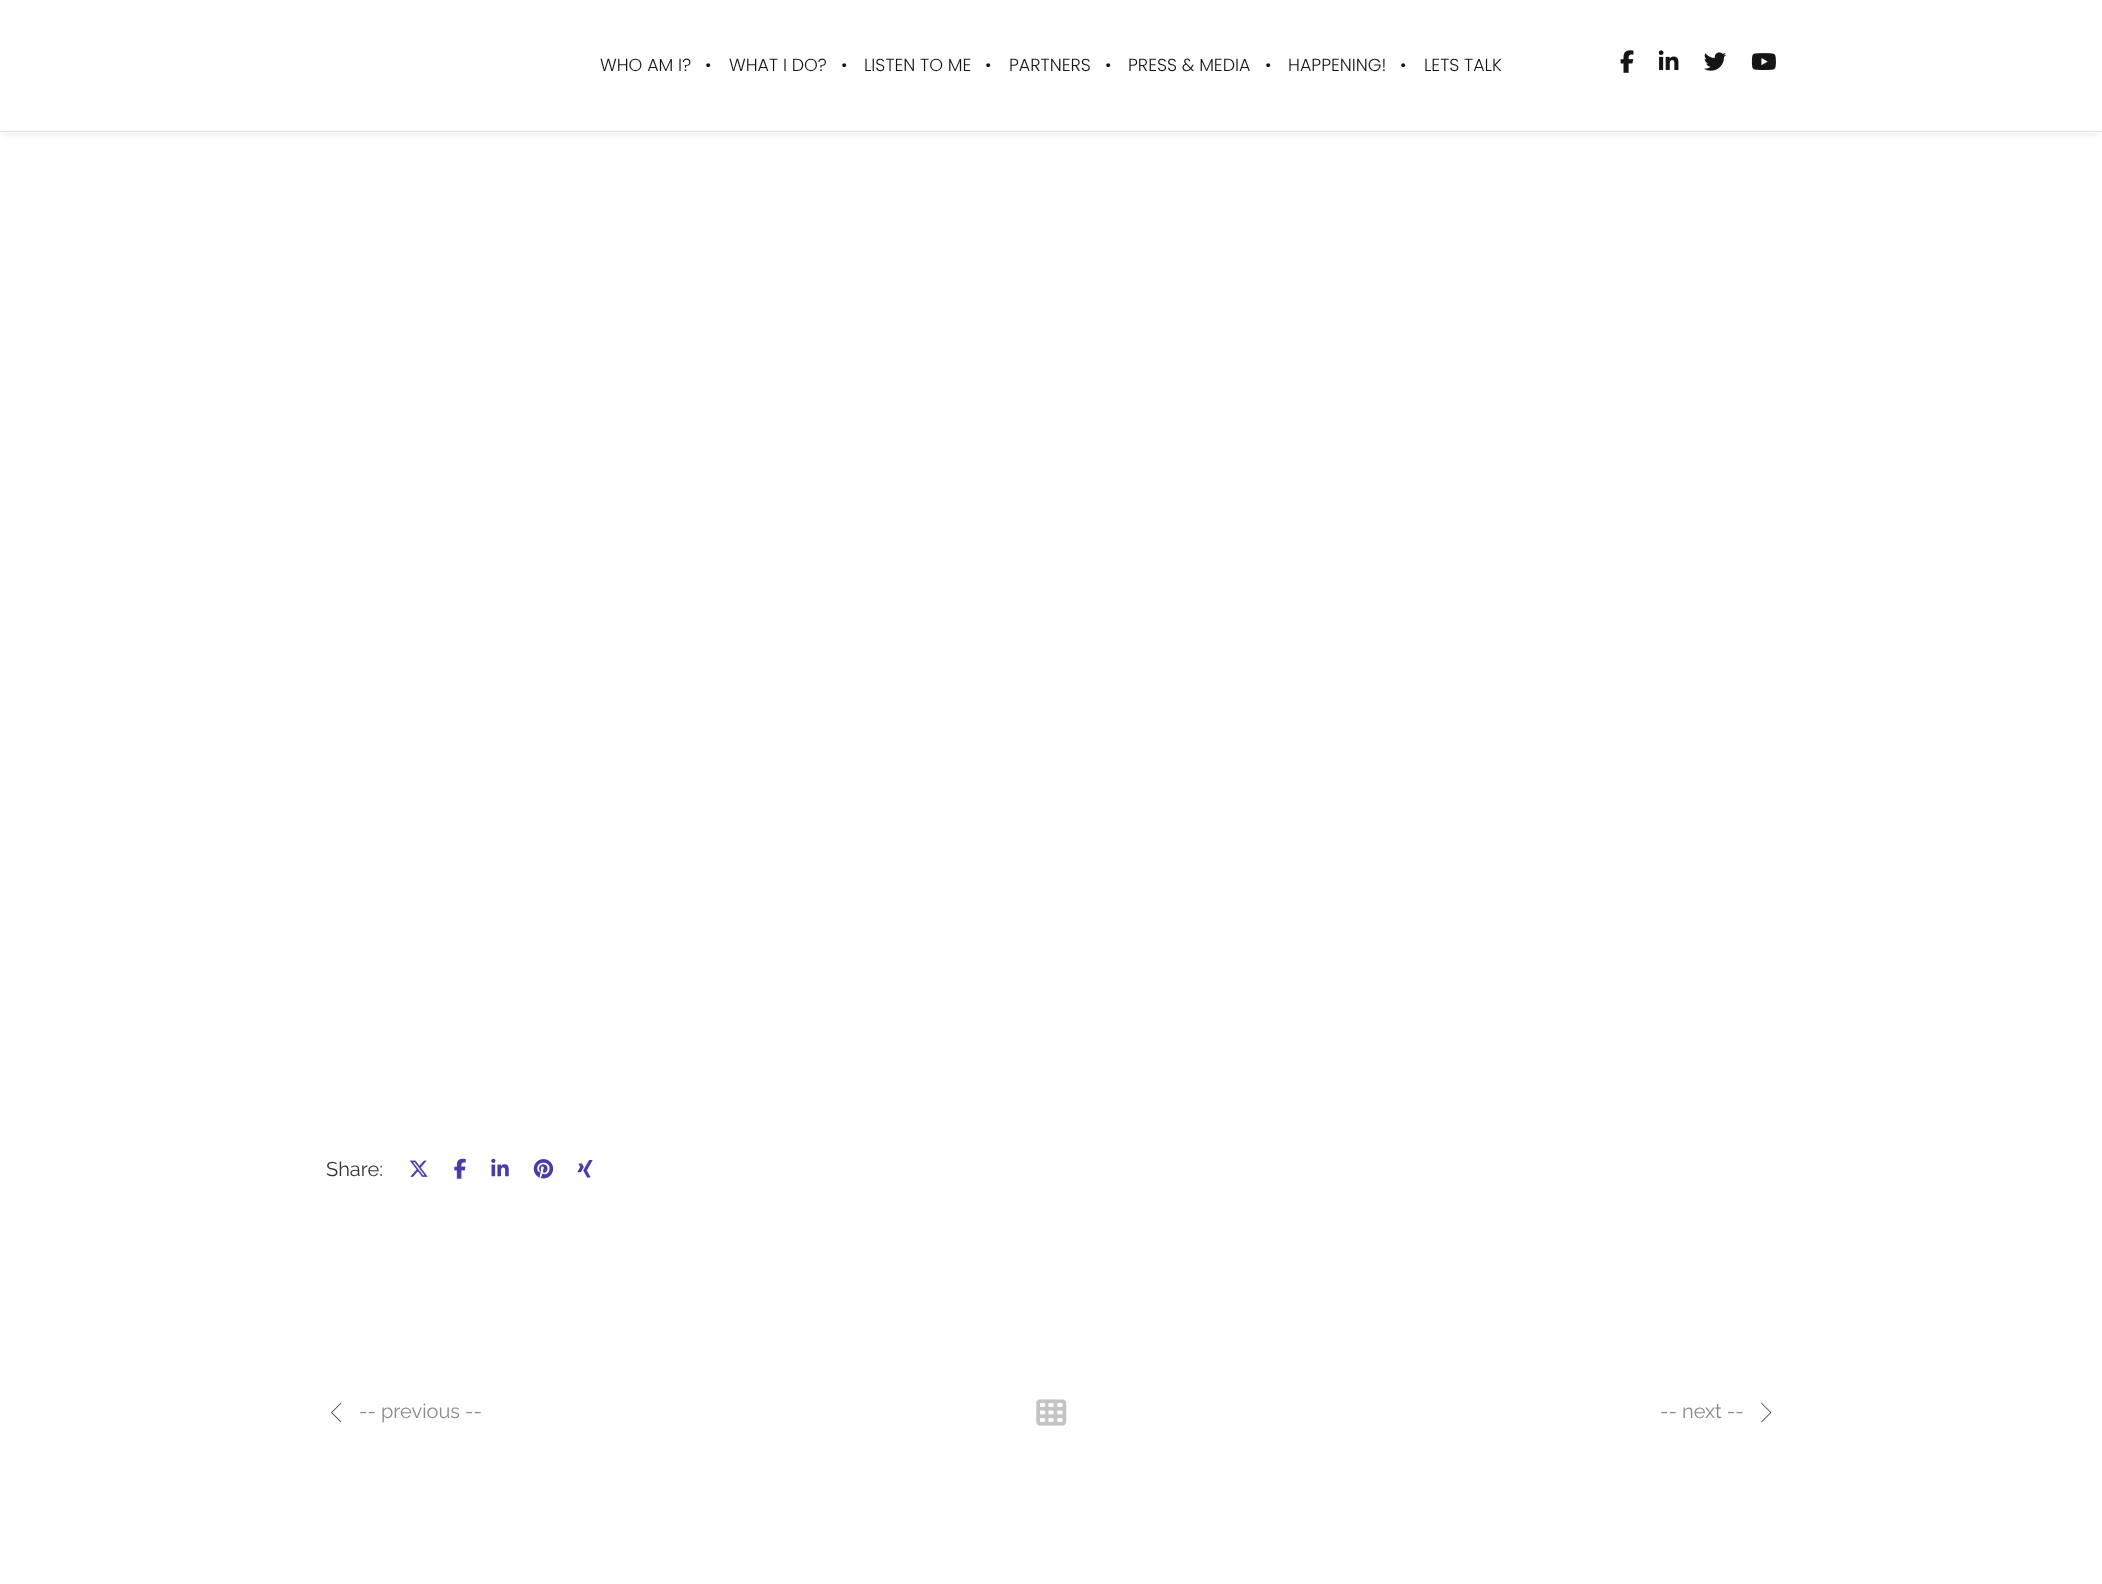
<!DOCTYPE html>
<meta charset="utf-8">
<style>body { margin: 0 } canvas { display: block }</style>
<canvas id="canvas" width="2102" height="1584"></canvas>
<img id="img1" src="img_01.png" hidden>
<img id="img2" src="img_02.png" hidden>
<img id="img3" src="img_03.png" hidden>
<img id="img4" src="img_04.png" hidden>
<img id="img5" src="img_05.png" hidden>
<img id="img6" src="img_06.png" hidden>
<img id="img7" src="img_07.png" hidden>
<img id="img8" src="img_08.png" hidden>
<img id="img9" src="img_09.png" hidden>
<img id="img10" src="img_10.png" hidden>
<img id="img11" src="img_11.png" hidden>
<img id="img12" src="img_12.png" hidden>
<script>
window.onload = function () {
	const canvas = document.getElementById("canvas");
	const ctx = canvas.getContext("2d");
	ctx.miterLimit = 4;
	ctx.fontKerning = "normal";
	function txt(s, x, y) {
		ctx.fillText(s, x, y);
	}
	function fill(x, y, w, h) {
		ctx.fillRect(x, y, w, h);
	}
	function img(id, x, y, w, h) {
		ctx.drawImage(document.getElementById(id), x, y, w, h);
	}

	ctx.fillStyle = "#FFFFFF";
	fill(0, 0, 2102, 1584);
	ctx.fillStyle = "rgba(0, 0, 0, 0.1)";
	ctx.filter = "blur(3px)";
	ctx.beginPath();
	ctx.rect(5, 11, 2093, 123);
	ctx.fill();
	ctx.filter = "none";
	ctx.fillStyle = "#FFFFFF";
	fill(1, 7, 2101, 126);
	ctx.fillStyle = "#DDDDDD";
	fill(0, 131, 2102, 1);
	img("img1", 1620, 50, 14, 23);
	img("img2", 1658, 50, 21, 20);
	img("img3", 1704, 52, 23, 19);
	img("img4", 1751, 53, 25, 17);
	img("img5", 409, 1160, 19, 17);
	img("img6", 454, 1158, 12, 21);
	img("img7", 491, 1158, 18, 19);
	img("img8", 533, 1159, 21, 20);
	img("img9", 577, 1160, 16, 18);
	img("img10", 331, 1402, 11, 21);
	img("img11", 1036, 1399, 31, 27);
	img("img12", 1761, 1402, 11, 21);
	ctx.font = "300 17.5px Poppins";
	ctx.fillStyle = "#151515";
	txt("WHO AM I?", 600, 71);
	txt("•", 705, 71);
	txt("WHAT I DO?", 729, 71);
	txt("•", 841, 71);
	txt("LISTEN TO ME", 864, 71);
	txt("•", 985, 71);
	txt("PARTNERS", 1009, 71);
	txt("•", 1105, 71);
	txt("PRESS & MEDIA", 1128, 71);
	txt("•", 1265, 71);
	txt("HAPPENING!", 1288, 71);
	txt("•", 1400, 71);
	txt("LETS TALK", 1424, 71);
	ctx.font = "20px Raleway";
	ctx.fillStyle = "#333333";
	txt("Share:", 326, 1176);
	ctx.fillStyle = "#8A8A8A";
	txt("-- previous --", 359, 1418);
	txt("-- next --", 1660, 1418);
};
</script>
